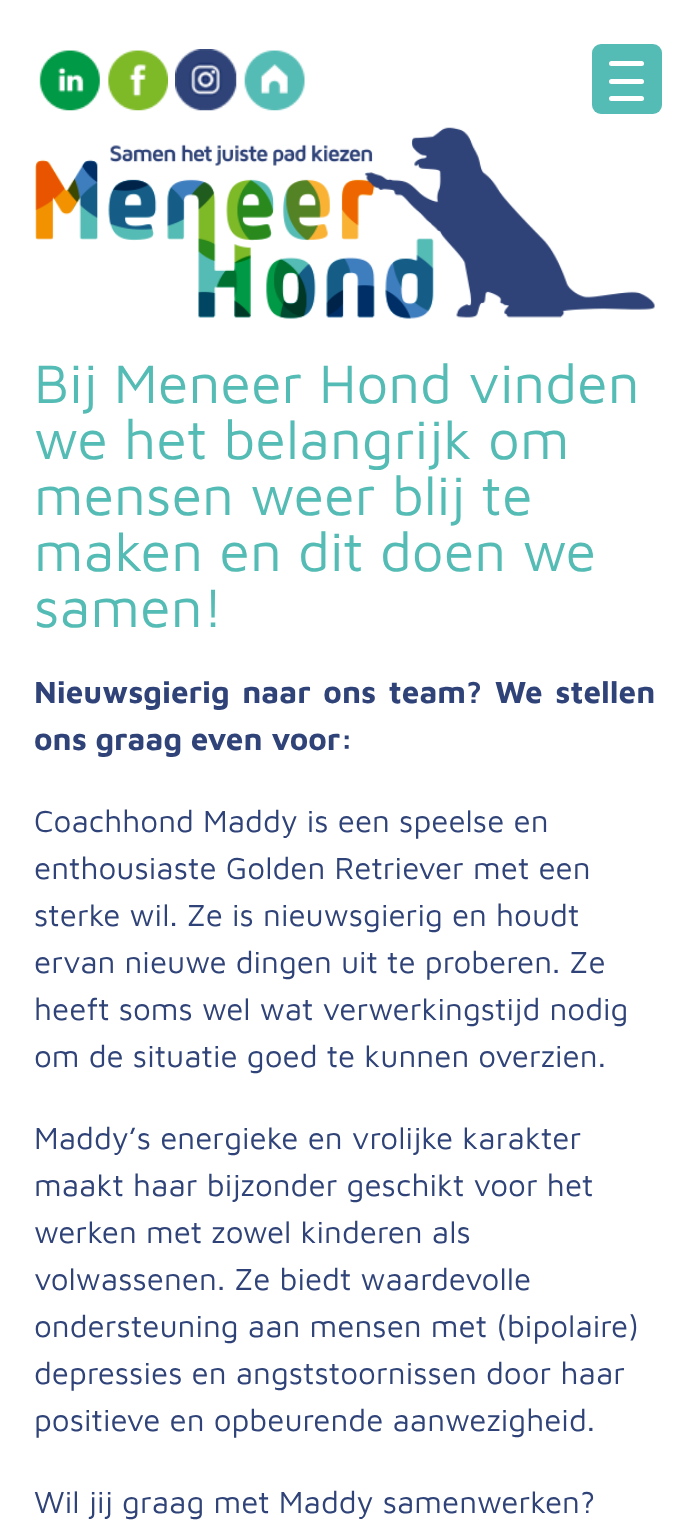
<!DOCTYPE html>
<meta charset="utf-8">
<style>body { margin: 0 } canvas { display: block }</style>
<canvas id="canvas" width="689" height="1539"></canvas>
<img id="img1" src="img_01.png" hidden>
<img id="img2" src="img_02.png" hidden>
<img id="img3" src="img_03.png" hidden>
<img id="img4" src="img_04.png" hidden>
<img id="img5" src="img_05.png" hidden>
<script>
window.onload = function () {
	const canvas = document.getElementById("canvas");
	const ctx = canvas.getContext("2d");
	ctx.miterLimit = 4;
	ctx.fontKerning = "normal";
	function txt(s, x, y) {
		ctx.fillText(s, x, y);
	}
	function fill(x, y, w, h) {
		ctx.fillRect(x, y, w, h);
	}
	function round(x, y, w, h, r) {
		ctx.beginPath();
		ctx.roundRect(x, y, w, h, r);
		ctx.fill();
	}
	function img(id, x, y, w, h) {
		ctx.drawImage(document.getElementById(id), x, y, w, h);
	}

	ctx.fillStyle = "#FFFFFF";
	fill(0, 0, 689, 1539);
	ctx.fillStyle = "#55BCB5";
	round(592, 44, 70, 70, 9);
	ctx.fillStyle = "#FFFFFF";
	round(609, 79, 35, 5, 2.5);
	round(609, 61, 35, 5, 2.5);
	round(609, 96, 35, 5, 2.5);
	img("img1", 39, 50, 61, 61);
	img("img2", 108, 50, 60, 61);
	img("img3", 175, 49, 62, 62);
	img("img4", 244, 50, 61, 61);
	img("img5", 35, 127, 620, 192);
	ctx.font = "56px Maven Pro";
	ctx.fillStyle = "#55BCB5";
	txt("Bij Meneer Hond vinden", 34, 403);
	txt("we het belangrijk om", 34, 459);
	txt("mensen weer blij te", 34, 515);
	txt("maken en dit doen we", 34, 571);
	txt("samen!", 34, 627);
	ctx.wordSpacing = "4px";
	ctx.font = "bold 31.4px Maven Pro";
	ctx.fillStyle = "#2F4378";
	txt("Nieuwsgierig naar ons team? We stellen", 34, 703);
	ctx.wordSpacing = "0px";
	txt("ons graag even voor:", 34, 750);
	ctx.font = "31.4px Maven Pro";
	txt("Coachhond Maddy is een speelse en", 34, 832);
	txt("enthousiaste Golden Retriever met een", 34, 879);
	txt("sterke wil. Ze is nieuwsgierig en houdt", 34, 926);
	txt("ervan nieuwe dingen uit te proberen. Ze", 34, 973);
	txt("heeft soms wel wat verwerkingstijd nodig", 34, 1020);
	txt("om de situatie goed te kunnen overzien.", 34, 1067);
	txt("Maddy’s energieke en vrolijke karakter", 34, 1149);
	txt("maakt haar bijzonder geschikt voor het", 34, 1196);
	txt("werken met zowel kinderen als", 34, 1243);
	txt("volwassenen. Ze biedt waardevolle", 34, 1290);
	txt("ondersteuning aan mensen met (bipolaire)", 34, 1337);
	txt("depressies en angststoornissen door haar", 34, 1384);
	txt("positieve en opbeurende aanwezigheid.", 34, 1431);
	txt("Wil jij graag met Maddy samenwerken?", 34, 1513);
};
</script>
